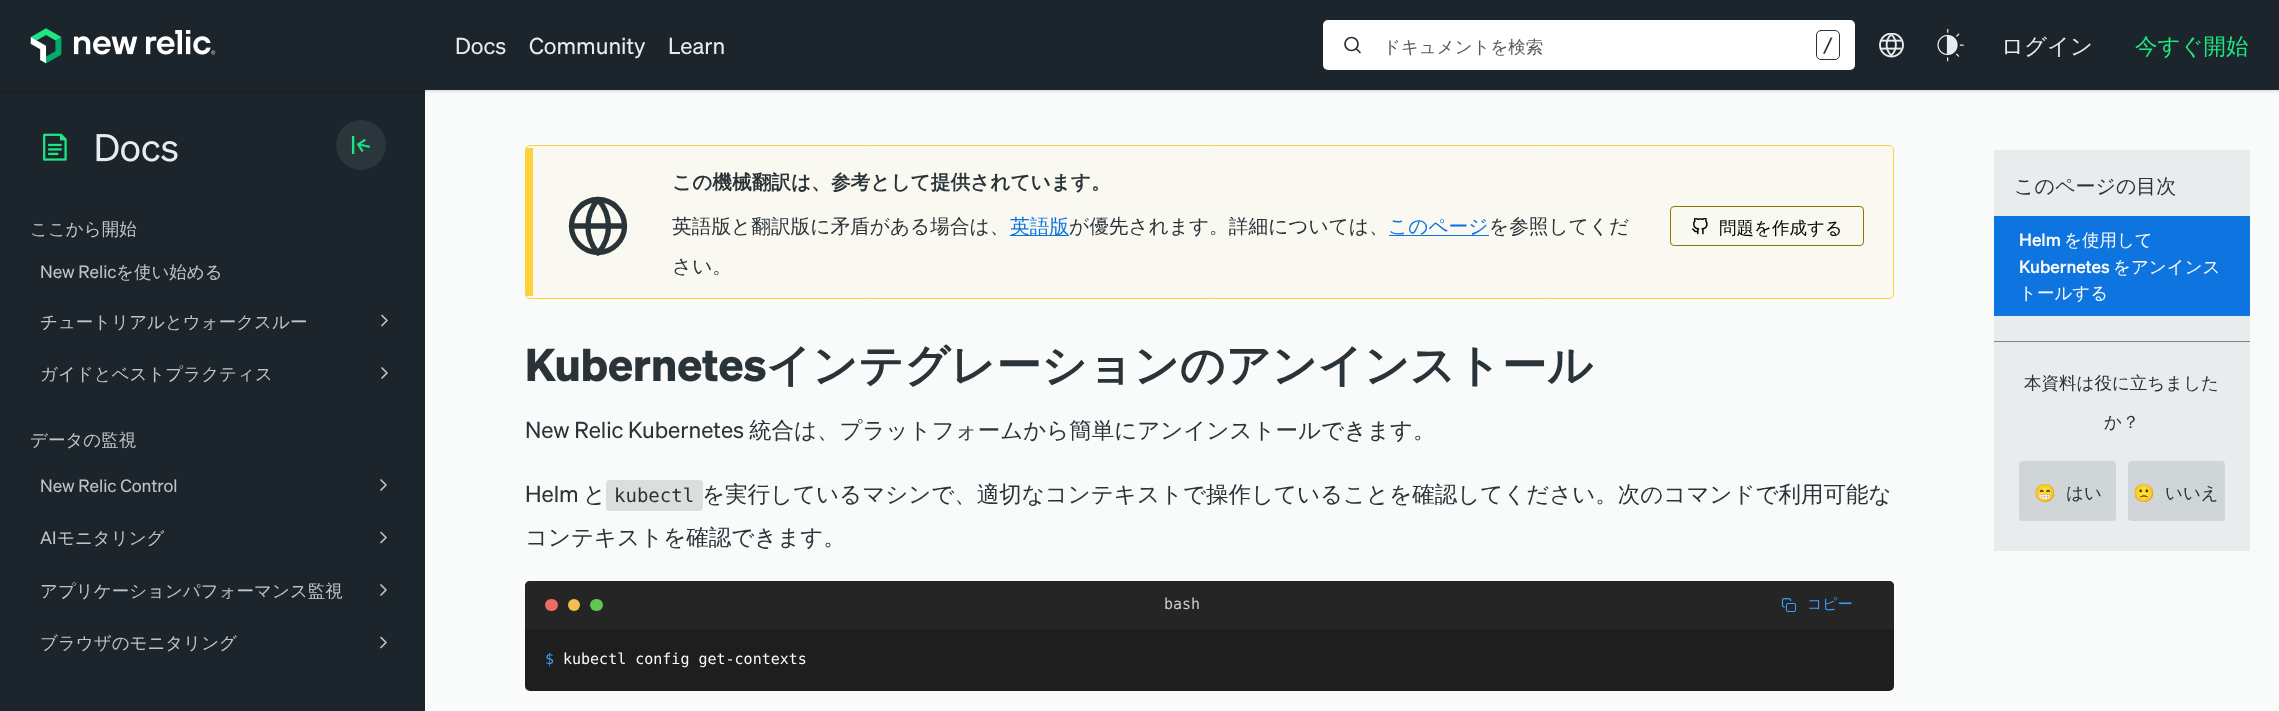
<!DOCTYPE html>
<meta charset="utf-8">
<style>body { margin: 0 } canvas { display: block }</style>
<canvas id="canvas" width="2279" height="711"></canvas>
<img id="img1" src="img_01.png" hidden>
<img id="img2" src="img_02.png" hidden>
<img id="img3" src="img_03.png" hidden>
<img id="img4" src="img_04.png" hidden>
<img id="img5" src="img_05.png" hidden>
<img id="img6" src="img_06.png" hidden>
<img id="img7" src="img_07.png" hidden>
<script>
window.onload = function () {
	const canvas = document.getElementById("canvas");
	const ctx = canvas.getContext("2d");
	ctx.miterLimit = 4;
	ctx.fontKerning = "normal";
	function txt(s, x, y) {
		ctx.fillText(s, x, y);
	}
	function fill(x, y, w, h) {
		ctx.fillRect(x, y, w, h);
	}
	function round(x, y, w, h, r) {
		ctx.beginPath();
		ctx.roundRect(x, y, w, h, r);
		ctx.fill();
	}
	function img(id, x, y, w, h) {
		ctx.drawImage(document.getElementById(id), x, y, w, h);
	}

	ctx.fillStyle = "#F9FAFA";
	fill(0, 0, 2279, 711);
	ctx.fillStyle = "#1D252C";
	fill(0, 90, 425, 621);
	ctx.fillStyle = "rgba(0, 0, 0, 0.06)";
	ctx.filter = "blur(1px)";
	ctx.beginPath();
	ctx.rect(0, 1, 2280, 90);
	ctx.fill();
	ctx.filter = "none";
	ctx.fillStyle = "rgba(0, 0, 0, 0.1)";
	ctx.filter = "blur(2px)";
	ctx.beginPath();
	ctx.rect(0, 1, 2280, 90);
	ctx.fill();
	ctx.filter = "none";
	ctx.fillStyle = "#1D252C";
	fill(0, 0, 2279, 90);
	img("img1", 30, 28, 186, 36);
	ctx.fillStyle = "#FFFFFF";
	round(1323, 20, 532, 50, 5);
	ctx.beginPath();
	ctx.arc(1351.5, 44, 6.5, 0, Math.PI * 2);
	ctx.strokeStyle = "#293338";
	ctx.lineWidth = 1.7;
	ctx.stroke();
	ctx.beginPath();
	ctx.moveTo(1360, 52.5);
	ctx.lineTo(1356.5, 49);
	ctx.lineCap = "round";
	ctx.lineJoin = "round";
	ctx.stroke();
	ctx.beginPath();
	ctx.roundRect(1816.5, 30.5, 23, 29, 4.5);
	ctx.lineWidth = 1;
	ctx.lineJoin = "miter";
	ctx.stroke();
	img("img2", 1879, 33, 25, 25);
	img("img3", 1937, 29, 27, 33);
	ctx.fillStyle = "#2A363C";
	ctx.beginPath();
	ctx.arc(361, 145, 25, 0, Math.PI * 2);
	ctx.fill();
	img("img4", 351, 136, 20, 18);
	img("img5", 43, 133, 135, 29);
	ctx.beginPath();
	ctx.moveTo(382, 325.5);
	ctx.lineTo(387, 320.5);
	ctx.lineTo(382, 315.5);
	ctx.strokeStyle = "#C0C4C6";
	ctx.lineWidth = 1.7;
	ctx.lineJoin = "round";
	ctx.stroke();
	ctx.beginPath();
	ctx.moveTo(382, 378);
	ctx.lineTo(387, 373);
	ctx.lineTo(382, 368);
	ctx.stroke();
	ctx.beginPath();
	ctx.moveTo(381, 490);
	ctx.lineTo(386, 485);
	ctx.lineTo(381, 480);
	ctx.stroke();
	ctx.beginPath();
	ctx.moveTo(381, 542.5);
	ctx.lineTo(386, 537.5);
	ctx.lineTo(381, 532.5);
	ctx.stroke();
	ctx.beginPath();
	ctx.moveTo(381, 595);
	ctx.lineTo(386, 590);
	ctx.lineTo(381, 585);
	ctx.stroke();
	ctx.beginPath();
	ctx.moveTo(381, 647.5);
	ctx.lineTo(386, 642.5);
	ctx.lineTo(381, 637.5);
	ctx.stroke();
	ctx.fillStyle = "#FAF9F1";
	ctx.beginPath();
	ctx.moveTo(532, 146);
	ctx.lineTo(1889, 146);
	ctx.bezierCurveTo(1891, 146, 1892, 148, 1892, 150);
	ctx.lineTo(1892, 294);
	ctx.bezierCurveTo(1892, 296, 1891, 298, 1889, 298);
	ctx.lineTo(532, 298);
	ctx.closePath();
	ctx.fill();
	ctx.beginPath();
	ctx.roundRect(525.5, 145.5, 1368, 153, 4.5);
	ctx.strokeStyle = "#FFD23D";
	ctx.lineWidth = 1;
	ctx.lineJoin = "miter";
	ctx.stroke();
	ctx.fillStyle = "#FFD23D";
	fill(526, 148, 7, 148);
	ctx.beginPath();
	ctx.arc(598, 226, 26.5, 0, Math.PI * 2);
	ctx.strokeStyle = "#293338";
	ctx.lineWidth = 5.3;
	ctx.stroke();
	ctx.beginPath();
	ctx.moveTo(571.5, 226);
	ctx.lineTo(624.5, 226);
	ctx.moveTo(598, 199.5);
	ctx.bezierCurveTo(612, 215, 612, 237.5, 598, 253);
	ctx.bezierCurveTo(584.5, 237.5, 584.5, 215, 598, 199.5);
	ctx.closePath();
	ctx.lineJoin = "round";
	ctx.stroke();
	ctx.fillStyle = "#0C74DF";
	fill(1010, 235, 59, 1);
	fill(1389, 235, 100, 1);
	ctx.beginPath();
	ctx.roundRect(1670.5, 206.5, 193, 39, 3.5);
	ctx.strokeStyle = "#8A7800";
	ctx.lineWidth = 1;
	ctx.lineJoin = "miter";
	ctx.stroke();
	img("img6", 1692, 218, 16, 17);
	ctx.fillStyle = "#E9ECEC";
	fill(1994, 150, 256, 401);
	ctx.fillStyle = "#7B838A";
	fill(1994, 341, 256, 1);
	ctx.fillStyle = "#0E74DF";
	fill(1994, 216, 256, 100);
	ctx.fillStyle = "#D0D6D7";
	round(2019, 461, 97, 60, 4);
	round(2128, 461, 97, 60, 4);
	ctx.fillStyle = "#DCDEDE";
	round(606, 480, 97, 31, 4);
	ctx.fillStyle = "#1E1E1E";
	round(525, 581, 1369, 110, 5);
	ctx.fillStyle = "#252526";
	ctx.beginPath();
	ctx.roundRect(525, 581, 1369, 48, [5, 5, 0, 0]);
	ctx.fill();
	ctx.fillStyle = "#ED6B60";
	round(545, 599, 13, 12, 6);
	ctx.fillStyle = "#F5BE4F";
	ctx.beginPath();
	ctx.arc(574, 605, 6, 0, Math.PI * 2);
	ctx.fill();
	ctx.fillStyle = "#62C554";
	round(590, 599, 13, 12, 6);
	img("img7", 1781, 598, 15, 14);
	ctx.font = "22.5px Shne";
	ctx.fillStyle = "#E9ECEC";
	txt("Docs", 455, 54);
	txt("Community", 529, 54);
	txt("Learn", 668, 54);
	ctx.font = "500 17.5px WenQuanYi Zen Hei";
	ctx.fillStyle = "#545C60";
	txt("ドキュメントを検索", 1383, 53);
	ctx.font = "20px DejaVu Sans Mono";
	ctx.fillStyle = "#293338";
	txt("/", 1822, 52);
	ctx.font = "500 22.5px WenQuanYi Zen Hei";
	ctx.fillStyle = "#E9ECEC";
	txt("ログイン", 2001, 54);
	ctx.fillStyle = "#1CE783";
	txt("今すぐ開始", 2135, 54);
	ctx.font = "500 17.5px WenQuanYi Zen Hei";
	ctx.fillStyle = "#C0C4C6";
	txt("ここから開始", 30, 235);
	ctx.font = "17.5px Shne";
	txt("New Relic", 40, 278);
	ctx.font = "500 17.5px WenQuanYi Zen Hei";
	txt("を使い始める", 116, 278);
	txt("チュートリアルとウォークスルー", 40, 328);
	txt("ガイドとベストプラクティス", 40, 380);
	txt("データの監視", 30, 446);
	ctx.font = "17.5px Shne";
	txt("New Relic Control", 40, 492);
	txt("AI", 40, 544);
	ctx.font = "500 17.5px WenQuanYi Zen Hei";
	txt("モニタリング", 57, 544);
	txt("アプリケーションパフォーマンス監視", 40, 597);
	txt("ブラウザのモニタリング", 40, 649);
	ctx.font = "bold 19.7px WenQuanYi Zen Hei";
	ctx.fillStyle = "#293338";
	txt("この機械翻訳は、参考として提供されています。", 672, 189);
	ctx.font = "500 19.7px WenQuanYi Zen Hei";
	txt("英語版と翻訳版に矛盾がある場合は、", 672, 233);
	ctx.fillStyle = "#0C74DF";
	txt("英語版", 1010, 233);
	ctx.fillStyle = "#293338";
	txt("が優先されます。詳細については、", 1069, 233);
	ctx.fillStyle = "#0C74DF";
	txt("このページ", 1388, 233);
	ctx.fillStyle = "#293338";
	txt("を参照してくだ", 1489, 233);
	txt("さい。", 672, 273);
	ctx.font = "500 17.5px WenQuanYi Zen Hei";
	ctx.fillStyle = "#000000";
	txt("問題を作成する", 1719, 234);
	ctx.font = "500 20px WenQuanYi Zen Hei";
	ctx.fillStyle = "#293338";
	txt("このページの目次", 2014, 193);
	ctx.font = "500 17.5px Shne";
	ctx.fillStyle = "#FAFAFA";
	txt("Helm", 2019, 246);
	ctx.font = "500 17.5px WenQuanYi Zen Hei";
	txt("を使用して", 2064, 246);
	ctx.font = "500 17.5px Shne";
	txt("Kubernetes", 2019, 273);
	ctx.font = "500 17.5px WenQuanYi Zen Hei";
	txt("をアンインス", 2113, 273);
	txt("トールする", 2019, 299);
	ctx.fillStyle = "#293338";
	txt("本資料は役に立ちました", 2024, 389);
	txt("か？", 2104, 428);
	ctx.font = "17.5px Noto Color Emoji";
	txt("😁", 2034, 499);
	ctx.font = "500 17.5px WenQuanYi Zen Hei";
	txt("はい", 2066, 499);
	ctx.font = "17.5px Noto Color Emoji";
	txt("🙁", 2133, 499);
	ctx.font = "500 17.5px WenQuanYi Zen Hei";
	txt("いいえ", 2165, 499);
	ctx.font = "bold 45px Shne";
	txt("Kubernetes", 525, 381);
	ctx.font = "bold 45px WenQuanYi Zen Hei";
	txt("インテグレーションのアンインストール", 766, 381);
	ctx.font = "22.5px Shne";
	txt("New Relic Kubernetes", 525, 438);
	ctx.font = "500 22.5px WenQuanYi Zen Hei";
	txt("統合は、プラットフォームから簡単にアンインストールできます。", 749, 438);
	ctx.font = "22.5px Shne";
	txt("Helm", 525, 502);
	ctx.font = "500 22.5px WenQuanYi Zen Hei";
	txt("と", 583, 502);
	ctx.font = "19px DejaVu Sans Mono";
	txt("kubectl", 614, 502);
	ctx.font = "500 22.5px WenQuanYi Zen Hei";
	txt("を実行しているマシンで、適切なコンテキストで操作していることを確認してください。次のコマンドで利用可能な", 702, 502);
	txt("コンテキストを確認できます。", 525, 545);
	ctx.font = "15px DejaVu Sans Mono";
	ctx.fillStyle = "#CCCCCC";
	txt("bash", 1164, 609);
	ctx.font = "500 15px WenQuanYi Zen Hei";
	ctx.fillStyle = "#3D9DFF";
	txt("コピー", 1807, 609);
	ctx.font = "15px DejaVu Sans Mono";
	txt("$", 545, 664);
	ctx.fillStyle = "#FAFAFA";
	txt("kubectl config get-contexts", 563, 664);
};
</script>
